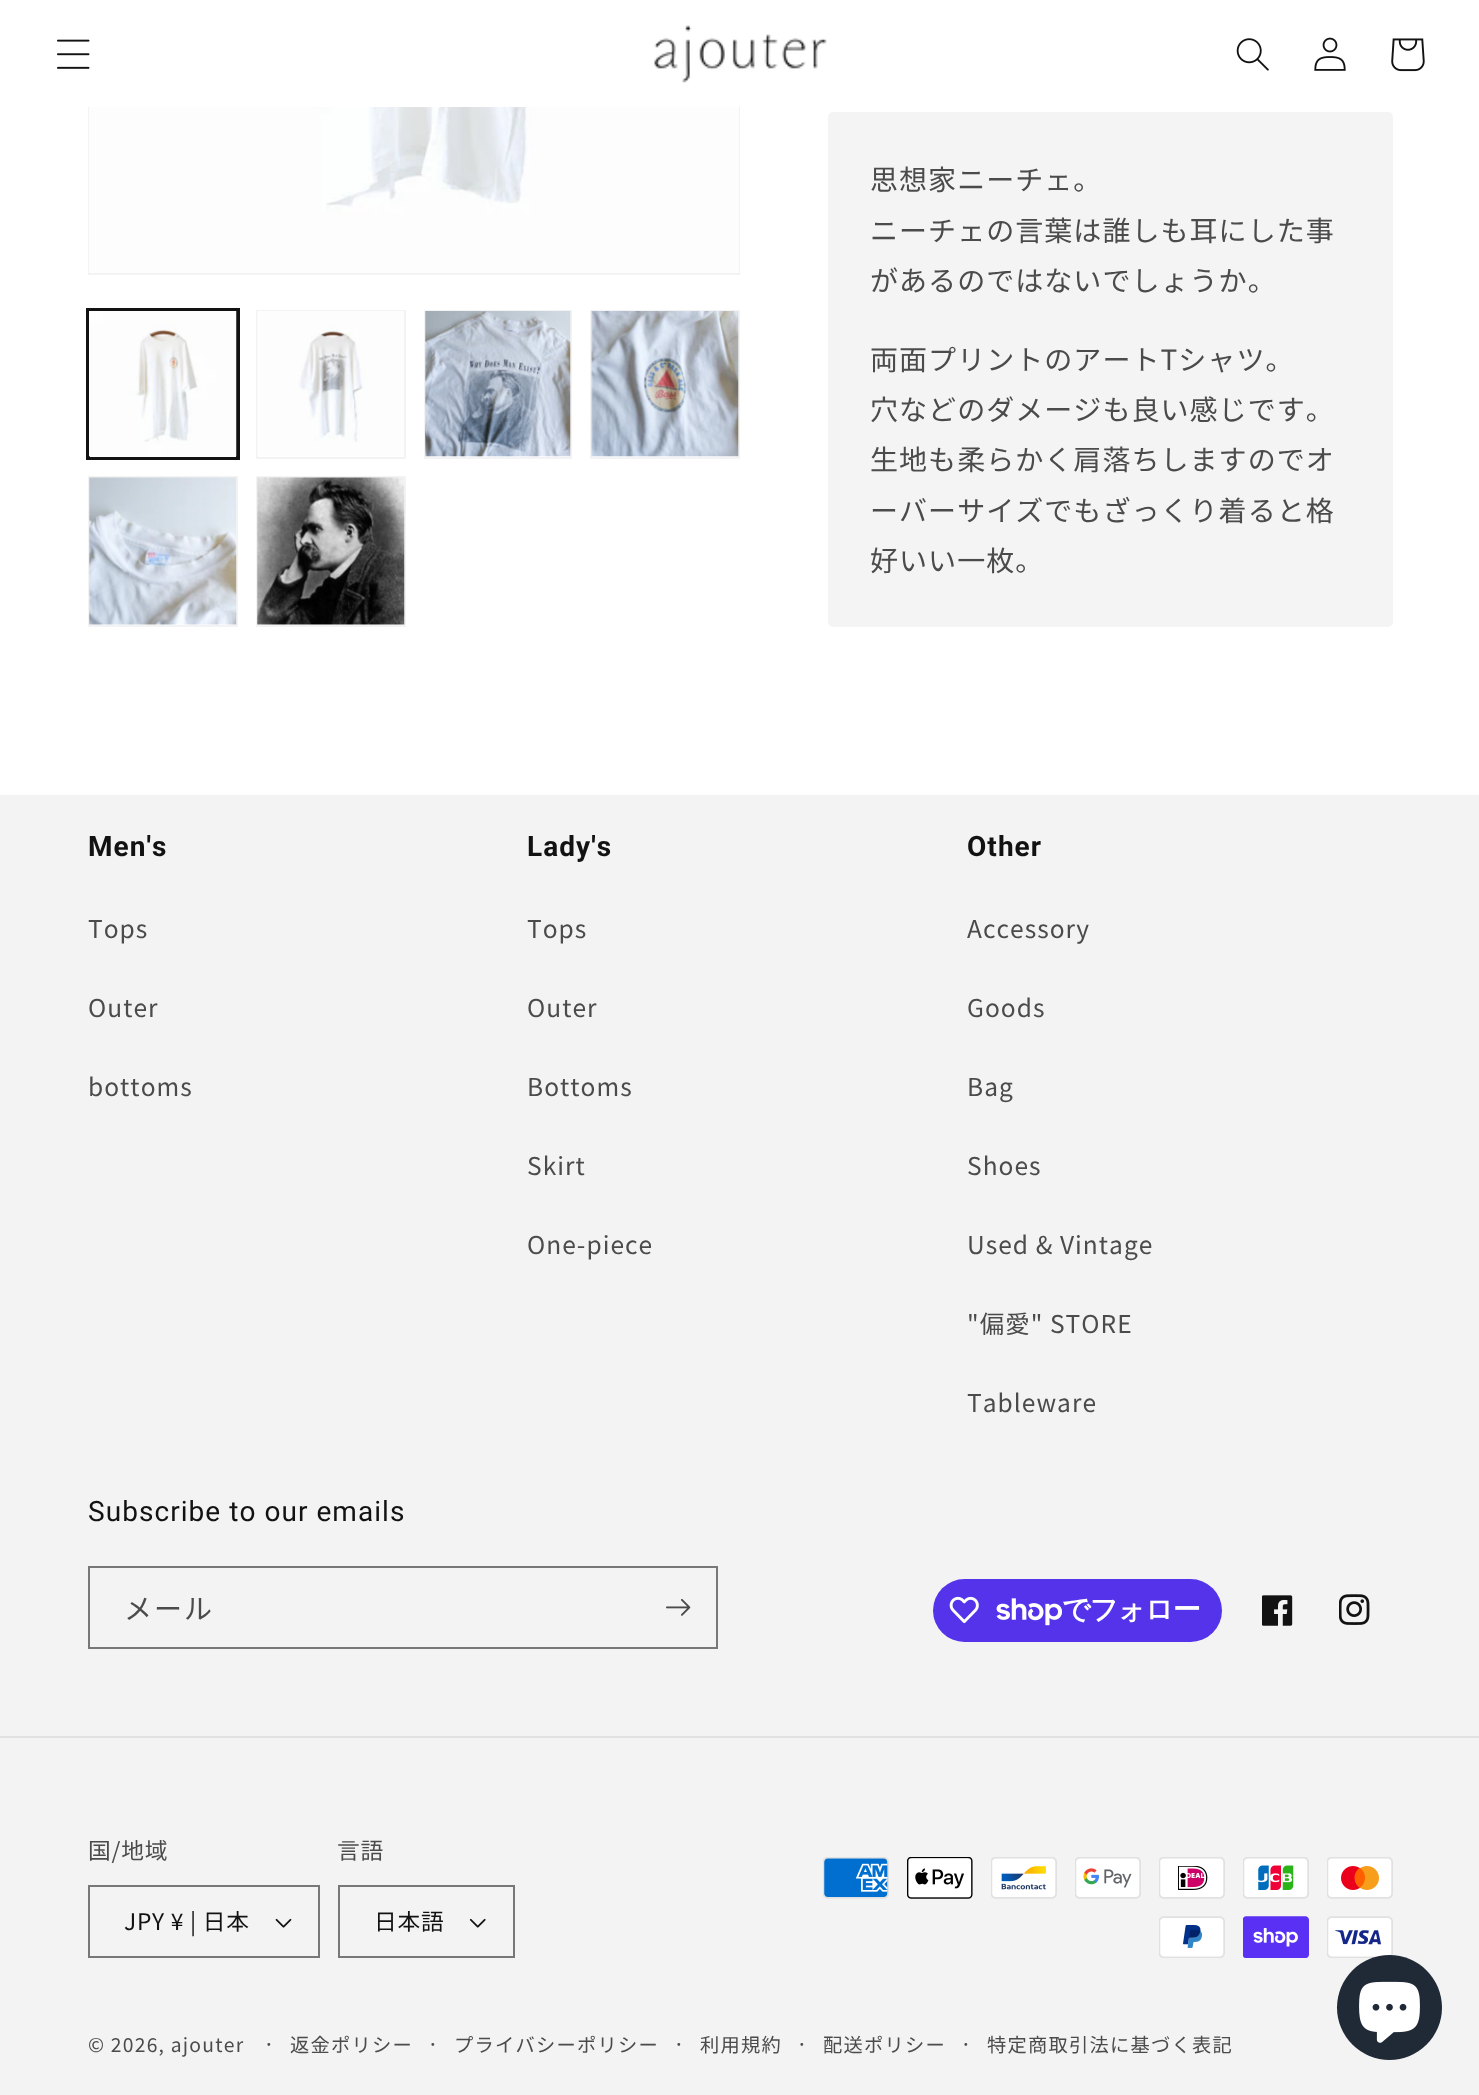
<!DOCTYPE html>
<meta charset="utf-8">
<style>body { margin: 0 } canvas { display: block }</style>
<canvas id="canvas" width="1479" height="2095"></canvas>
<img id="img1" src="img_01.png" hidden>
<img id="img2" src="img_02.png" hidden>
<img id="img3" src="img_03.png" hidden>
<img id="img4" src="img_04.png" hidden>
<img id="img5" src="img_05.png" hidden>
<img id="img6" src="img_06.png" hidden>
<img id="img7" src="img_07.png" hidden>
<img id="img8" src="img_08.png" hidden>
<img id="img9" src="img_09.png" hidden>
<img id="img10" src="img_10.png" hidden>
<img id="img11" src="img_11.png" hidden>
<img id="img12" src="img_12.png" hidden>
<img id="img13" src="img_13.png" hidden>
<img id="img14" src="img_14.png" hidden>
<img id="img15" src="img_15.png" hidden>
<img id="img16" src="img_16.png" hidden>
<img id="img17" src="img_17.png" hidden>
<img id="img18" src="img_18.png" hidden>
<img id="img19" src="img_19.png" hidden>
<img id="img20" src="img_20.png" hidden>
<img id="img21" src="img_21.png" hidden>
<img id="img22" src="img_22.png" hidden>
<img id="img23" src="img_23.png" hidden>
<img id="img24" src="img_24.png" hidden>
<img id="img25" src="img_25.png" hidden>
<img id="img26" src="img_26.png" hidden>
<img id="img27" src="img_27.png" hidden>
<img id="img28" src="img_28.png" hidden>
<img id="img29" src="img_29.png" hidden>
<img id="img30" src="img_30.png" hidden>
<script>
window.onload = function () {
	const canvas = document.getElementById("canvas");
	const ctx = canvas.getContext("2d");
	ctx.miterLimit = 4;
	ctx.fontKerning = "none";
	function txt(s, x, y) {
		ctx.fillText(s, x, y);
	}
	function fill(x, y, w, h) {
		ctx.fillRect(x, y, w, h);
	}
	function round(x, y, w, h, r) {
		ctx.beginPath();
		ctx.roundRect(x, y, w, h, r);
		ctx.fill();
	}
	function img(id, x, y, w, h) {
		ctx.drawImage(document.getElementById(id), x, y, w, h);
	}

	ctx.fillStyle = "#FFFFFF";
	fill(0, 0, 1479, 2095);
	ctx.strokeStyle = "#F3F3F3";
	ctx.lineWidth = 2;
	ctx.strokeRect(89, -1, 650, 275);
	fill(88, 0, 652, 107);
	img("img1", 57, 39, 33, 30);
	img("img2", 654, 25, 173, 58);
	img("img3", 1236, 38, 33, 33);
	img("img4", 1314, 37, 32, 34);
	img("img5", 1391, 38, 34, 34);
	img("img6", 89, 107, 650, 166);
	ctx.strokeStyle = "#121212";
	ctx.strokeRect(87, 309, 152, 150);
	ctx.strokeRect(89, 311, 148, 147);
	img("img7", 89, 311, 148, 146);
	ctx.strokeStyle = "#F3F3F3";
	ctx.strokeRect(257, 311, 148, 147);
	img("img8", 257, 311, 147, 145);
	ctx.strokeRect(425, 311, 146, 147);
	img("img9", 425, 311, 146, 146);
	ctx.strokeRect(591, 311, 148, 147);
	img("img10", 591, 311, 148, 146);
	ctx.strokeRect(89, 477, 148, 149);
	img("img11", 89, 477, 148, 148);
	ctx.strokeRect(257, 477, 148, 149);
	img("img12", 257, 477, 148, 148);
	ctx.fillStyle = "#F4F4F5";
	round(828, 112, 565, 515, 5);
	ctx.fillStyle = "#F3F3F3";
	fill(0, 795, 1479, 1300);
	ctx.strokeStyle = "#777777";
	ctx.strokeRect(89, 1567, 628, 81);
	img("img13", 666, 1599, 25, 17);
	ctx.fillStyle = "#5433EB";
	round(933, 1579, 289, 63, 31.5);
	img("img14", 949, 1596, 30, 28);
	img("img15", 996, 1598, 66, 28);
	img("img16", 1262, 1595, 31, 31);
	img("img17", 1339, 1594, 31, 31);
	ctx.fillStyle = "#E1E1E1";
	fill(0, 1736, 1479, 2);
	img("img18", 275, 1918, 17, 10);
	ctx.strokeRect(89, 1886, 230, 71);
	img("img19", 469, 1918, 17, 10);
	ctx.strokeRect(339, 1886, 175, 71);
	img("img20", 823, 1857, 66, 42);
	img("img21", 907, 1857, 66, 42);
	img("img22", 991, 1857, 66, 42);
	img("img23", 1075, 1857, 66, 42);
	img("img24", 1159, 1857, 66, 42);
	img("img25", 1243, 1857, 66, 42);
	img("img26", 1327, 1857, 66, 42);
	img("img27", 1159, 1916, 66, 42);
	img("img28", 1243, 1916, 66, 42);
	img("img29", 1327, 1916, 66, 42);
	ctx.fillStyle = "#202A36";
	ctx.beginPath();
	ctx.arc(1389.5, 2007.5, 52.5, 0, Math.PI * 2);
	ctx.fill();
	img("img30", 1359, 1981, 61, 62);
	ctx.letterSpacing = "1.05px";
	ctx.font = "28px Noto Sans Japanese";
	ctx.fillStyle = "#4B4B4B";
	txt("思想家ニーチェ。", 870, 190);
	txt("ニーチェの言葉は誰しも耳にした事", 870, 241);
	txt("があるのではないでしょうか。", 870, 291);
	txt("両面プリントのアートTシャツ。", 870, 370);
	txt("穴などのダメージも良い感じです。", 870, 420);
	txt("生地も柔らかく肩落ちしますのでオ", 870, 470);
	txt("ーバーサイズでもざっくり着ると格", 870, 521);
	txt("好いい一枚。", 870, 571);
	ctx.font = "bold 28px Roboto";
	ctx.fillStyle = "#121212";
	txt("Men's", 88, 856);
	ctx.font = "24.5px Noto Sans Japanese";
	ctx.fillStyle = "#4B4B4B";
	txt("Tops", 88, 938);
	txt("Outer", 88, 1017);
	txt("bottoms", 88, 1096);
	ctx.font = "bold 28px Roboto";
	ctx.fillStyle = "#121212";
	txt("Lady's", 527, 856);
	ctx.font = "24.5px Noto Sans Japanese";
	ctx.fillStyle = "#4B4B4B";
	txt("Tops", 527, 938);
	txt("Outer", 527, 1017);
	txt("Bottoms", 527, 1096);
	txt("Skirt", 527, 1175);
	txt("One-piece", 527, 1254);
	ctx.font = "bold 28px Roboto";
	ctx.fillStyle = "#121212";
	txt("Other", 967, 856);
	ctx.font = "24.5px Noto Sans Japanese";
	ctx.fillStyle = "#4B4B4B";
	txt("Accessory", 967, 938);
	txt("Goods", 967, 1017);
	txt("Bag", 967, 1096);
	txt("Shoes", 967, 1175);
	txt("Used & Vintage", 967, 1254);
	txt("\"偏愛\" STORE", 967, 1333);
	txt("Tableware", 967, 1412);
	ctx.font = "28px Roboto";
	ctx.fillStyle = "#121212";
	txt("Subscribe to our emails", 88, 1521);
	ctx.letterSpacing = "2px";
	ctx.font = "28px Noto Sans Japanese";
	ctx.fillStyle = "#4B4B4B";
	txt("メール", 124, 1619);
	ctx.letterSpacing = "-1px";
	ctx.font = "bold 28px WenQuanYi Zen Hei";
	ctx.fillStyle = "#FFFFFF";
	txt("でフォロー", 1062, 1619);
	ctx.letterSpacing = "0.75px";
	ctx.font = "22.75px Noto Sans Japanese";
	ctx.fillStyle = "#4B4B4B";
	txt("国/地域", 88, 1859);
	ctx.fillStyle = "#121212";
	txt("JPY ¥ | 日本", 124, 1930);
	ctx.fillStyle = "#4B4B4B";
	txt("言語", 337, 1859);
	ctx.fillStyle = "#121212";
	txt("日本語", 374, 1930);
	ctx.letterSpacing = "1.25px";
	ctx.font = "19.25px Noto Sans Japanese";
	ctx.fillStyle = "#4B4B4B";
	txt("© 2026, ajouter", 88, 2052);
	ctx.font = "21px Noto Sans Japanese";
	txt("·", 263, 2052);
	ctx.font = "19.25px Noto Sans Japanese";
	txt("返金ポリシー", 290, 2052);
	ctx.font = "21px Noto Sans Japanese";
	txt("·", 427, 2052);
	ctx.font = "19.25px Noto Sans Japanese";
	txt("プライバシーポリシー", 454, 2052);
	ctx.font = "21px Noto Sans Japanese";
	txt("·", 673, 2052);
	ctx.font = "19.25px Noto Sans Japanese";
	txt("利用規約", 700, 2052);
	ctx.font = "21px Noto Sans Japanese";
	txt("·", 796, 2052);
	ctx.font = "19.25px Noto Sans Japanese";
	txt("配送ポリシー", 823, 2052);
	ctx.font = "21px Noto Sans Japanese";
	txt("·", 960, 2052);
	ctx.font = "19.25px Noto Sans Japanese";
	txt("特定商取引法に基づく表記", 987, 2052);
};
</script>
